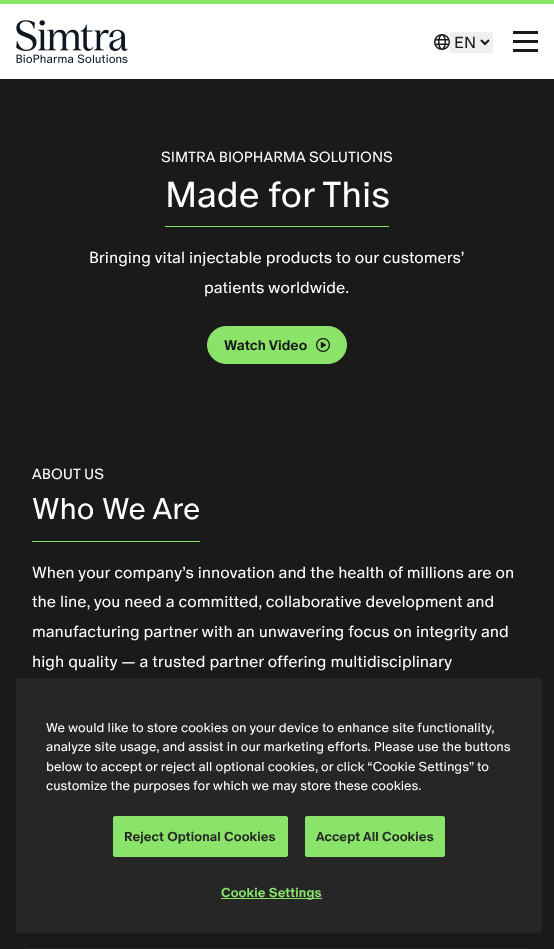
<!DOCTYPE html>
<meta charset="utf-8">
<style>body { margin: 0 } canvas { display: block }</style>
<canvas id="canvas" width="554" height="949"></canvas>
<img id="img1" src="img_01.png" hidden>
<img id="img2" src="img_02.png" hidden>
<img id="img3" src="img_03.png" hidden>
<script>
window.onload = function () {
	const canvas = document.getElementById("canvas");
	const ctx = canvas.getContext("2d");
	ctx.miterLimit = 4;
	ctx.fontKerning = "normal";
	function txt(s, x, y) {
		ctx.fillText(s, x, y);
	}
	function fill(x, y, w, h) {
		ctx.fillRect(x, y, w, h);
	}
	function round(x, y, w, h, r) {
		ctx.beginPath();
		ctx.roundRect(x, y, w, h, r);
		ctx.fill();
	}
	function img(id, x, y, w, h) {
		ctx.drawImage(document.getElementById(id), x, y, w, h);
	}

	ctx.fillStyle = "#1A1A1A";
	fill(0, 0, 554, 949);
	ctx.fillStyle = "#FFFFFF";
	fill(0, 4, 554, 75);
	ctx.fillStyle = "#89E469";
	fill(0, 0, 554, 4);
	img("img1", 16, 20, 112, 43);
	img("img2", 434, 34, 16, 16);
	ctx.fillStyle = "#EFEFEF";
	fill(450, 32, 43, 21);
	ctx.beginPath();
	ctx.moveTo(481, 40);
	ctx.lineTo(485, 44);
	ctx.lineTo(489, 40);
	ctx.strokeStyle = "#1A1A1A";
	ctx.lineWidth = 2;
	ctx.stroke();
	ctx.fillStyle = "#1A1A1A";
	fill(513, 49, 25, 3);
	fill(513, 31, 25, 3);
	fill(513, 40, 25, 3);
	ctx.fillStyle = "#89E469";
	fill(165, 226, 224, 1);
	ctx.beginPath();
	ctx.roundRect(207.5, 326.5, 139, 37, 18.5);
	ctx.fill();
	ctx.strokeStyle = "#89E469";
	ctx.lineWidth = 1;
	ctx.stroke();
	img("img3", 316, 338, 14, 14);
	fill(32, 541, 168, 1);
	ctx.fillStyle = "#262626";
	round(16, 948, 522, 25, 24);
	round(16, 678, 526, 255, 2.5);
	ctx.fillStyle = "#89E469";
	ctx.beginPath();
	ctx.roundRect(113.5, 816.5, 174, 40, 1.5);
	ctx.fill();
	ctx.stroke();
	ctx.beginPath();
	ctx.roundRect(305.5, 816.5, 139, 40, 1.5);
	ctx.fill();
	ctx.stroke();
	fill(221, 898, 101, 1);
	ctx.font = "300 16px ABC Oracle";
	ctx.fillStyle = "#1A1A1A";
	txt("EN", 454, 48);
	ctx.font = "300 14.75px ABC Oracle";
	ctx.fillStyle = "#FFFFFF";
	txt("SIMTRA BIOPHARMA SOLUTIONS", 161, 162);
	ctx.font = "300 36px ABC Oracle";
	txt("Made for This", 165, 207);
	ctx.font = "300 16px ABC Oracle";
	txt("Bringing vital injectable products to our customers’", 89, 263);
	txt("patients worldwide.", 204, 293);
	ctx.font = "bold 14px ABC Oracle";
	ctx.fillStyle = "#1A1A1A";
	txt("Watch Video", 224, 350);
	ctx.font = "300 14.75px ABC Oracle";
	ctx.fillStyle = "#FFFFFF";
	txt("ABOUT US", 32, 479);
	ctx.font = "300 30px ABC Oracle";
	txt("Who We Are", 32, 519);
	ctx.font = "300 16px ABC Oracle";
	txt("When your company’s innovation and the health of millions are on", 32, 578);
	txt("the line, you need a committed, collaborative development and", 32, 607);
	txt("manufacturing partner with an unwavering focus on integrity and", 32, 637);
	txt("high quality — a trusted partner offering multidisciplinary", 32, 667);
	ctx.font = "300 13px ABC Oracle";
	txt("We would like to store cookies on your device to enhance site functionality,", 46, 732);
	txt("analyze site usage, and assist in our marketing efforts. Please use the buttons", 46, 751);
	txt("below to accept or reject all optional cookies, or click “Cookie Settings” to", 46, 771);
	txt("customize the purposes for which we may store these cookies.", 46, 790);
	ctx.letterSpacing = "0.1px";
	ctx.font = "bold 13px ABC Oracle";
	ctx.fillStyle = "#262626";
	txt("Reject Optional Cookies", 124, 841);
	txt("Accept All Cookies", 316, 841);
	ctx.fillStyle = "#89E469";
	txt("Cookie Settings", 221, 897);
};
</script>
